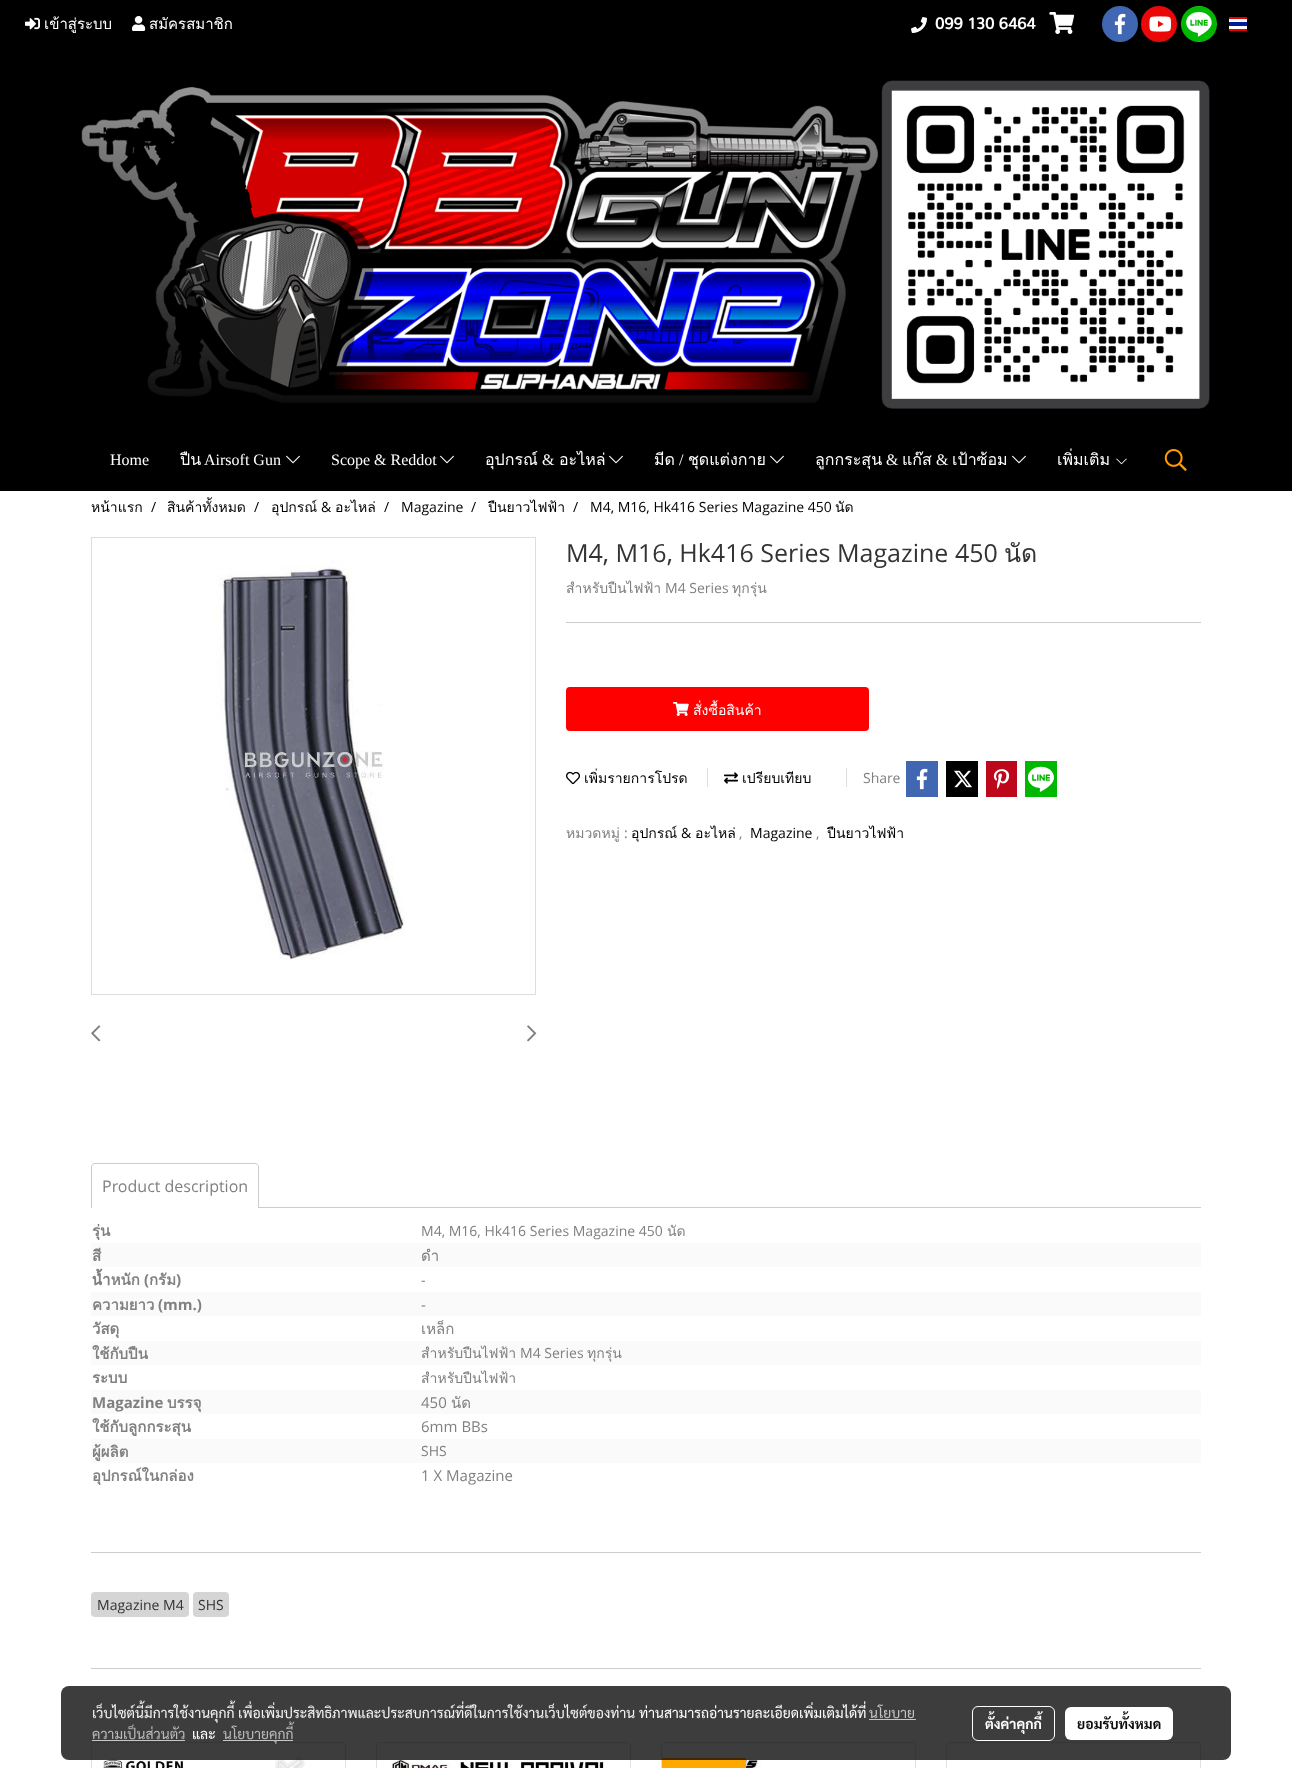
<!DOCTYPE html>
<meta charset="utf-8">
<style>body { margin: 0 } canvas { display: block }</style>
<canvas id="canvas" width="1292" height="1768"></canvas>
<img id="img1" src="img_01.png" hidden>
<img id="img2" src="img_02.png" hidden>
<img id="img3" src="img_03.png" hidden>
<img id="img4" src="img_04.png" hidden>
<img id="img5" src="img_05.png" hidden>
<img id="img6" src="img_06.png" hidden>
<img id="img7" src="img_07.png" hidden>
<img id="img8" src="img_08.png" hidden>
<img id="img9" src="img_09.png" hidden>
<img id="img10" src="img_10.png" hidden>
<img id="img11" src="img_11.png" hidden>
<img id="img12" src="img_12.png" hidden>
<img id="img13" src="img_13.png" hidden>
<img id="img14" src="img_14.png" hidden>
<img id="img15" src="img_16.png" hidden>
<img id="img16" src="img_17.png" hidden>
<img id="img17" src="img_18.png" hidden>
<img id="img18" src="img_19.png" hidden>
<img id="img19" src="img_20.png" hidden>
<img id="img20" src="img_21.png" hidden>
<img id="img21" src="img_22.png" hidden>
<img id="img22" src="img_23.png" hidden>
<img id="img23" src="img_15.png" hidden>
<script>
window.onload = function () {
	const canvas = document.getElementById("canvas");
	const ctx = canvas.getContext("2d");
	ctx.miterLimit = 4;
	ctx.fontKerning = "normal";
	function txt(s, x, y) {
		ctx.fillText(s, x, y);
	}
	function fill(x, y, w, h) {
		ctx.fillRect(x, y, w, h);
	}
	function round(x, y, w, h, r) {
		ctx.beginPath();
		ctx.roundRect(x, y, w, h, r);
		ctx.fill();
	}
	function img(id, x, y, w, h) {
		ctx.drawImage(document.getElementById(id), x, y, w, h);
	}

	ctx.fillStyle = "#FFFFFF";
	fill(0, 0, 1292, 1768);
	ctx.fillStyle = "#000000";
	fill(0, 0, 1292, 491);
	img("img1", 25, 17, 15, 13);
	img("img2", 132, 16, 14, 15);
	img("img3", 911, 17, 16, 16);
	img("img4", 1049, 12, 26, 22);
	ctx.fillStyle = "#4267B2";
	ctx.beginPath();
	ctx.arc(1120, 24, 18, 0, Math.PI * 2);
	ctx.fill();
	img("img5", 1114, 13, 12, 22);
	ctx.fillStyle = "#EB0808";
	ctx.beginPath();
	ctx.arc(1159, 24, 18, 0, Math.PI * 2);
	ctx.fill();
	img("img6", 1149, 16, 23, 16);
	ctx.fillStyle = "#00B800";
	ctx.beginPath();
	ctx.arc(1199, 24, 18, 0, Math.PI * 2);
	ctx.fill();
	img("img7", 1181, 6, 36, 36);
	ctx.fillStyle = "#FFFFFF";
	fill(1229, 19, 18, 10);
	ctx.fillStyle = "#001B9A";
	fill(1229, 22, 18, 4);
	ctx.fillStyle = "#E70000";
	fill(1229, 17, 18, 2);
	fill(1229, 29, 18, 2);
	img("img8", 81, 80, 1129, 329);
	img("img9", 286, 455, 14, 9);
	img("img9", 440, 455, 14, 9);
	img("img9", 609, 455, 14, 9);
	img("img9", 770, 455, 14, 9);
	img("img9", 1012, 455, 14, 9);
	img("img10", 1116, 458, 11, 7);
	img("img11", 1164, 449, 23, 22);
	ctx.strokeStyle = "#DDDDDD";
	ctx.strokeRect(91.5, 537.5, 444, 457);
	img("img12", 216, 559, 189, 401);
	img("img13", 91, 1025, 10, 17);
	img("img14", 527, 1025, 10, 17);
	ctx.fillStyle = "#CCCCCC";
	fill(566, 622, 635, 1);
	ctx.fillStyle = "#FF0000";
	round(566, 687, 303, 44, 4);
	img("img15", 566, 771, 14, 14);
	ctx.fillStyle = "#DEDEDE";
	fill(707, 768, 1, 19);
	img("img16", 724, 772, 14, 12);
	fill(846, 768, 1, 19);
	ctx.fillStyle = "#4267B2";
	fill(906, 761, 32, 36);
	img("img5", 916, 768, 12, 22);
	ctx.fillStyle = "#000000";
	fill(946, 761, 32, 36);
	img("img17", 954, 770, 18, 18);
	ctx.fillStyle = "#BD081C";
	fill(986, 761, 31, 36);
	img("img18", 993, 769, 17, 20);
	ctx.fillStyle = "#00B800";
	fill(1025, 761, 32, 36);
	img("img19", 1027, 766, 27, 26);
	ctx.fillStyle = "#CCCCCC";
	ctx.beginPath();
	ctx.moveTo(95, 1163);
	ctx.lineTo(255, 1163);
	ctx.bezierCurveTo(257, 1163, 259, 1165, 259, 1167);
	ctx.lineTo(259, 1208);
	ctx.lineTo(91, 1208);
	ctx.lineTo(91, 1167);
	ctx.bezierCurveTo(91, 1165, 93, 1163, 95, 1163);
	ctx.closePath();
	ctx.moveTo(95, 1164);
	ctx.lineTo(255, 1164);
	ctx.bezierCurveTo(257, 1164, 258, 1165, 258, 1167);
	ctx.lineTo(258, 1208);
	ctx.lineTo(92, 1208);
	ctx.lineTo(92, 1167);
	ctx.bezierCurveTo(92, 1165, 93, 1164, 95, 1164);
	ctx.closePath();
	ctx.fill("evenodd");
	fill(259, 1207, 942, 1);
	ctx.fillStyle = "#FAFAFA";
	fill(91, 1243, 1110, 24);
	fill(91, 1292, 1110, 24);
	fill(91, 1341, 1110, 24);
	fill(91, 1390, 1110, 24);
	fill(91, 1439, 1110, 24);
	ctx.fillStyle = "#CCCCCC";
	fill(91, 1552, 1110, 1);
	ctx.fillStyle = "#D5D5D5";
	round(91, 1592, 98, 25, 4);
	round(193, 1592, 36, 25, 4);
	ctx.fillStyle = "#CCCCCC";
	fill(91, 1668, 1110, 1);
	ctx.beginPath();
	ctx.roundRect(91.5, 1742.5, 254, 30, 3.5);
	ctx.strokeStyle = "#DEE2E6";
	ctx.stroke();
	img("img20", 103, 1757, 202, 11);
	ctx.beginPath();
	ctx.roundRect(376.5, 1742.5, 254, 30, 3.5);
	ctx.stroke();
	img("img21", 392, 1757, 213, 11);
	ctx.beginPath();
	ctx.roundRect(661.5, 1742.5, 254, 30, 3.5);
	ctx.stroke();
	img("img22", 688, 1757, 73, 11);
	ctx.fillStyle = "#FFA800";
	fill(662, 1758, 84, 10);
	ctx.beginPath();
	ctx.roundRect(946.5, 1742.5, 254, 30, 3.5);
	ctx.stroke();
	ctx.fillStyle = "rgba(0, 0, 0, 0.76)";
	round(61, 1686, 1170, 74, 8);
	ctx.fillStyle = "#C5C5C5";
	fill(869, 1719, 47, 1);
	fill(92, 1740, 93, 1);
	fill(223, 1740, 70, 1);
	ctx.beginPath();
	ctx.roundRect(972.5, 1706.5, 82, 34, 5.5);
	ctx.strokeStyle = "#FFFFFF";
	ctx.stroke();
	ctx.fillStyle = "#FFFFFF";
	round(1065, 1707, 108, 33, 6);
	ctx.font = "15px Loma";
	txt("เข้าสู่ระบบ", 44, 29);
	txt("สมัครสมาชิก", 149, 29);
	ctx.font = "bold 16px Nunito";
	txt("099 130 6464", 935, 29);
	ctx.font = "16px Liberation Serif";
	txt("Home", 110, 465);
	ctx.font = "16px Loma";
	txt("ปืน", 180, 465);
	ctx.font = "16px Liberation Serif";
	txt("Airsoft Gun", 204, 465);
	txt("Scope & Reddot", 331, 465);
	ctx.font = "16px Loma";
	txt("อุปกรณ์", 485, 465);
	ctx.font = "16px Liberation Serif";
	txt("&", 542, 465);
	ctx.font = "16px Loma";
	txt("อะไหล่", 559, 465);
	txt("มีด", 654, 465);
	ctx.font = "16px Liberation Serif";
	txt("/", 679, 465);
	ctx.font = "16px Loma";
	txt("ชุดแต่งกาย", 688, 465);
	txt("ลูกกระสุน", 815, 465);
	ctx.font = "16px Liberation Serif";
	txt("&", 886, 465);
	ctx.font = "16px Loma";
	txt("แก๊ส", 902, 465);
	ctx.font = "16px Liberation Serif";
	txt("&", 936, 465);
	ctx.font = "16px Loma";
	txt("เป้าซ้อม", 952, 465);
	txt("เพิ่มเติม", 1057, 465);
	ctx.font = "14px Loma";
	ctx.fillStyle = "#000000";
	txt("หน้าแรก", 91, 512);
	ctx.font = "14px Open Sans";
	txt("/", 151, 512);
	ctx.font = "14px Loma";
	txt("สินค้าทั้งหมด", 167, 512);
	ctx.font = "14px Open Sans";
	txt("/", 254, 512);
	ctx.font = "14px Loma";
	txt("อุปกรณ์", 271, 512);
	ctx.font = "14px Open Sans";
	txt("&", 321, 512);
	ctx.font = "14px Loma";
	txt("อะไหล่", 335, 512);
	ctx.font = "14px Open Sans";
	txt("/", 384, 512);
	txt("Magazine", 401, 512);
	txt("/", 471, 512);
	ctx.font = "14px Loma";
	txt("ปืนยาวไฟฟ้า", 488, 512);
	ctx.font = "14px Open Sans";
	txt("/", 573, 512);
	txt("M4, M16, Hk416 Series Magazine 450", 590, 512);
	ctx.font = "14px Loma";
	txt("นัด", 835, 512);
	ctx.font = "25px Open Sans";
	ctx.fillStyle = "#333333";
	txt("M4, M16, Hk416 Series Magazine 450", 566, 562);
	ctx.font = "25px Loma";
	txt("นัด", 1004, 562);
	ctx.font = "14px Loma";
	ctx.fillStyle = "#808080";
	txt("สำหรับปืนไฟฟ้า", 566, 593);
	ctx.font = "14px Open Sans";
	txt("M4 Series", 665, 593);
	ctx.font = "14px Loma";
	txt("ทุกรุ่น", 732, 593);
	ctx.fillStyle = "#FFFFFF";
	txt("สั่งซื้อสินค้า", 693, 715);
	img("img23", 673, 702, 16, 14);
	ctx.fillStyle = "#000000";
	txt("เพิ่มรายการโปรด", 584, 783);
	txt("เปรียบเทียบ", 742, 783);
	ctx.font = "14px Open Sans";
	ctx.fillStyle = "#808080";
	txt("Share", 863, 783);
	ctx.font = "14px Loma";
	txt("หมวดหมู่", 566, 838);
	ctx.font = "14px Open Sans";
	txt(":", 624, 838);
	ctx.font = "14px Loma";
	ctx.fillStyle = "#000000";
	txt("อุปกรณ์", 631, 838);
	ctx.font = "14px Open Sans";
	txt("&", 681, 838);
	ctx.font = "14px Loma";
	txt("อะไหล่", 695, 838);
	ctx.font = "14px Open Sans";
	ctx.fillStyle = "#808080";
	txt(",", 739, 838);
	ctx.fillStyle = "#000000";
	txt("Magazine", 750, 838);
	ctx.fillStyle = "#808080";
	txt(",", 816, 838);
	ctx.font = "14px Loma";
	ctx.fillStyle = "#000000";
	txt("ปืนยาวไฟฟ้า", 827, 838);
	ctx.font = "16px Open Sans";
	ctx.fillStyle = "#808080";
	txt("Product description", 102, 1192);
	ctx.save();
	ctx.beginPath();
	ctx.rect(91, 1218, 1110, 290);
	ctx.clip();
	ctx.font = "bold 15px Loma";
	txt("รุ่น", 92, 1236);
	ctx.restore();
	ctx.font = "14px Open Sans";
	txt("M4, M16, Hk416 Series Magazine 450", 421, 1236);
	ctx.font = "14px Loma";
	txt("นัด", 667, 1236);
	ctx.save();
	ctx.beginPath();
	ctx.rect(91, 1218, 1110, 290);
	ctx.clip();
	ctx.font = "bold 15px Loma";
	txt("สี", 92, 1261);
	ctx.restore();
	ctx.font = "15px Loma";
	txt("ดำ", 421, 1261);
	ctx.save();
	ctx.beginPath();
	ctx.rect(91, 1218, 1110, 290);
	ctx.clip();
	ctx.font = "bold 15px Loma";
	txt("น้ำหนัก", 92, 1285);
	ctx.restore();
	ctx.font = "bold 15px Open Sans";
	txt("(", 144, 1285);
	ctx.font = "bold 15px Loma";
	txt("กรัม", 149, 1285);
	ctx.font = "bold 15px Open Sans";
	txt(")", 176, 1285);
	ctx.font = "14px Open Sans";
	txt("-", 421, 1285);
	ctx.font = "bold 15px Loma";
	txt("ความยาว", 92, 1310);
	ctx.font = "bold 15px Open Sans";
	txt("(mm.)", 158, 1310);
	ctx.font = "15px Open Sans";
	txt("-", 421, 1310);
	ctx.save();
	ctx.beginPath();
	ctx.rect(91, 1218, 1110, 290);
	ctx.clip();
	ctx.font = "bold 15px Loma";
	txt("วัสดุ", 92, 1334);
	ctx.restore();
	ctx.font = "15px Loma";
	txt("เหล็ก", 421, 1334);
	ctx.font = "bold 15px Loma";
	txt("ใช้กับปืน", 92, 1359);
	ctx.font = "14px Loma";
	txt("สำหรับปืนไฟฟ้า", 421, 1358);
	ctx.font = "14px Open Sans";
	txt("M4 Series", 520, 1358);
	ctx.font = "14px Loma";
	txt("ทุกรุ่น", 587, 1358);
	ctx.font = "bold 15px Loma";
	txt("ระบบ", 92, 1383);
	ctx.font = "14px Loma";
	txt("สำหรับปืนไฟฟ้า", 421, 1383);
	ctx.font = "bold 15px Open Sans";
	txt("Magazine", 92, 1408);
	ctx.font = "bold 15px Loma";
	txt("บรรจุ", 167, 1408);
	ctx.font = "15px Open Sans";
	txt("450", 421, 1408);
	ctx.font = "15px Loma";
	txt("นัด", 451, 1408);
	ctx.font = "bold 15px Loma";
	txt("ใช้กับลูกกระสุน", 92, 1432);
	ctx.font = "15px Open Sans";
	txt("6mm BBs", 421, 1432);
	ctx.save();
	ctx.beginPath();
	ctx.rect(91, 1218, 1110, 290);
	ctx.clip();
	ctx.font = "bold 15px Loma";
	txt("ผู้ผลิต", 92, 1457);
	ctx.restore();
	ctx.font = "14px Open Sans";
	txt("SHS", 421, 1456);
	ctx.save();
	ctx.beginPath();
	ctx.rect(91, 1218, 1110, 290);
	ctx.clip();
	ctx.font = "bold 15px Loma";
	txt("อุปกรณ์ในกล่อง", 92, 1481);
	ctx.restore();
	ctx.font = "15px Open Sans";
	txt("1 X Magazine", 421, 1481);
	ctx.font = "14px Open Sans";
	ctx.fillStyle = "#333333";
	txt("Magazine M4", 97, 1610);
	txt("SHS", 198, 1610);
	ctx.font = "14px Sarabun";
	ctx.fillStyle = "#F5F5F5";
	txt("เว็บไซต์นี้มีการใช้งานคุกกี้ เพื่อเพิ่มประสิทธิภาพและประสบการณ์ที่ดีในการใช้งานเว็บไซต์ของท่าน", 92, 1718);
	ctx.fillStyle = "#FFFFFF";
	txt("ท่านสามารถอ่านรายละเอียดเพิ่มเติมได้ที่", 639, 1718);
	ctx.fillStyle = "#C5C5C5";
	txt("นโยบาย", 869, 1718);
	ctx.fillStyle = "#BBBBBB";
	txt("ความเป็นส่วนตัว", 92, 1739);
	ctx.fillStyle = "#FFFFFF";
	txt("และ", 192, 1739);
	ctx.fillStyle = "#BBBBBB";
	txt("นโยบายคุกกี้", 223, 1739);
	ctx.font = "bold 14px Sarabun";
	ctx.fillStyle = "#FFFFFF";
	txt("ตั้งค่าคุกกี้", 985, 1729);
	ctx.fillStyle = "#0D0D0D";
	txt("ยอมรับทั้งหมด", 1077, 1729);
};
</script>
